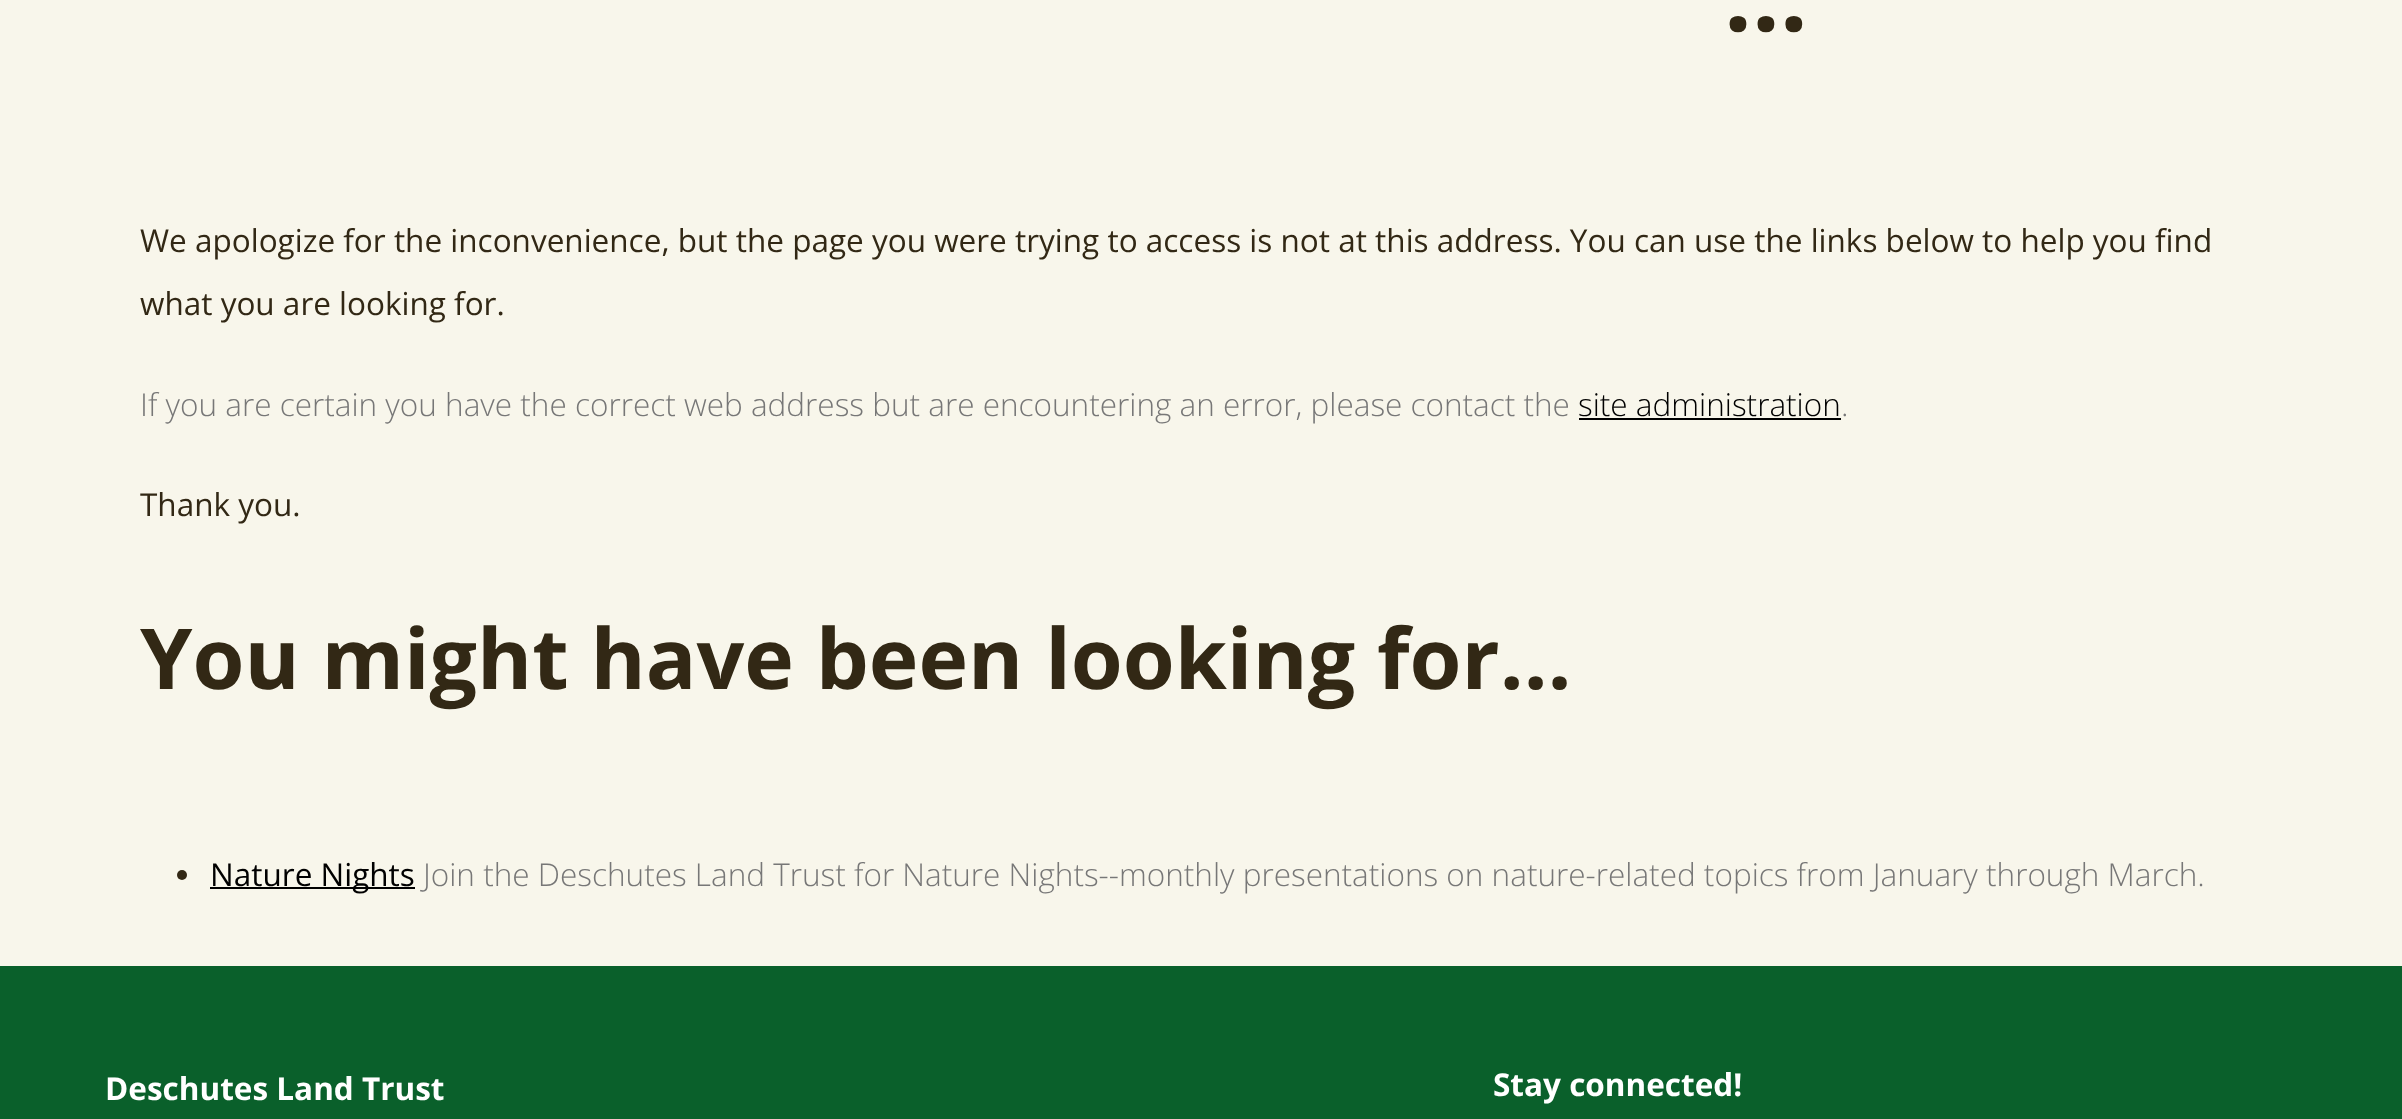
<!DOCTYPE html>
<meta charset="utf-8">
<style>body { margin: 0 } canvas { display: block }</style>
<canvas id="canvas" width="2402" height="1119"></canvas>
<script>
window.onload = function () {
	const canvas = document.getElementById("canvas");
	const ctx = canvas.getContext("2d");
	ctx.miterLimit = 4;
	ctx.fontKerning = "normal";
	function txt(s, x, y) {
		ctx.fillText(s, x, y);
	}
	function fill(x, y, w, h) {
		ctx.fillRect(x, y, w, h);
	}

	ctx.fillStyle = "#F8F6EB";
	fill(0, 0, 2402, 1119);
	ctx.fillStyle = "#000000";
	fill(1579, 418, 262, 2);
	ctx.fillStyle = "#322815";
	ctx.beginPath();
	ctx.arc(182, 875, 5, 0, Math.PI * 2);
	ctx.fill();
	ctx.fillStyle = "#000000";
	fill(210, 887, 205, 2);
	ctx.fillStyle = "#0A602B";
	fill(0, 966, 2402, 153);
	ctx.font = "bold 98px Open Sans";
	ctx.fillStyle = "#322815";
	txt("…", 1724, 31);
	ctx.font = "31.5px Open Sans";
	txt("We apologize for the inconvenience, but the page you were trying to access is not at this address. You can use the links below to help you find", 140, 252);
	txt("what you are looking for.", 140, 315);
	ctx.font = "300 31.5px Open Sans";
	ctx.fillStyle = "#777777";
	txt("If you are certain you have the correct web address but are encountering an error, please contact the", 140, 416);
	ctx.fillStyle = "#000000";
	txt("site administration", 1578, 416);
	ctx.fillStyle = "#777777";
	txt(".", 1841, 416);
	ctx.font = "31.5px Open Sans";
	ctx.fillStyle = "#322815";
	txt("Thank you.", 140, 516);
	ctx.font = "bold 84px Open Sans";
	txt("You might have been looking for…", 140, 689);
	ctx.font = "31.5px Open Sans";
	ctx.fillStyle = "#000000";
	txt("Nature Nights", 210, 886);
	ctx.font = "300 31.5px Open Sans";
	ctx.fillStyle = "#777777";
	txt("Join the Deschutes Land Trust for Nature Nights--monthly presentations on nature-related topics from January through March.", 423, 886);
	ctx.font = "bold 31.5px Open Sans";
	ctx.fillStyle = "#FFFFFF";
	txt("Deschutes Land Trust", 105, 1100);
	txt("Stay connected!", 1493, 1096);
};
</script>
